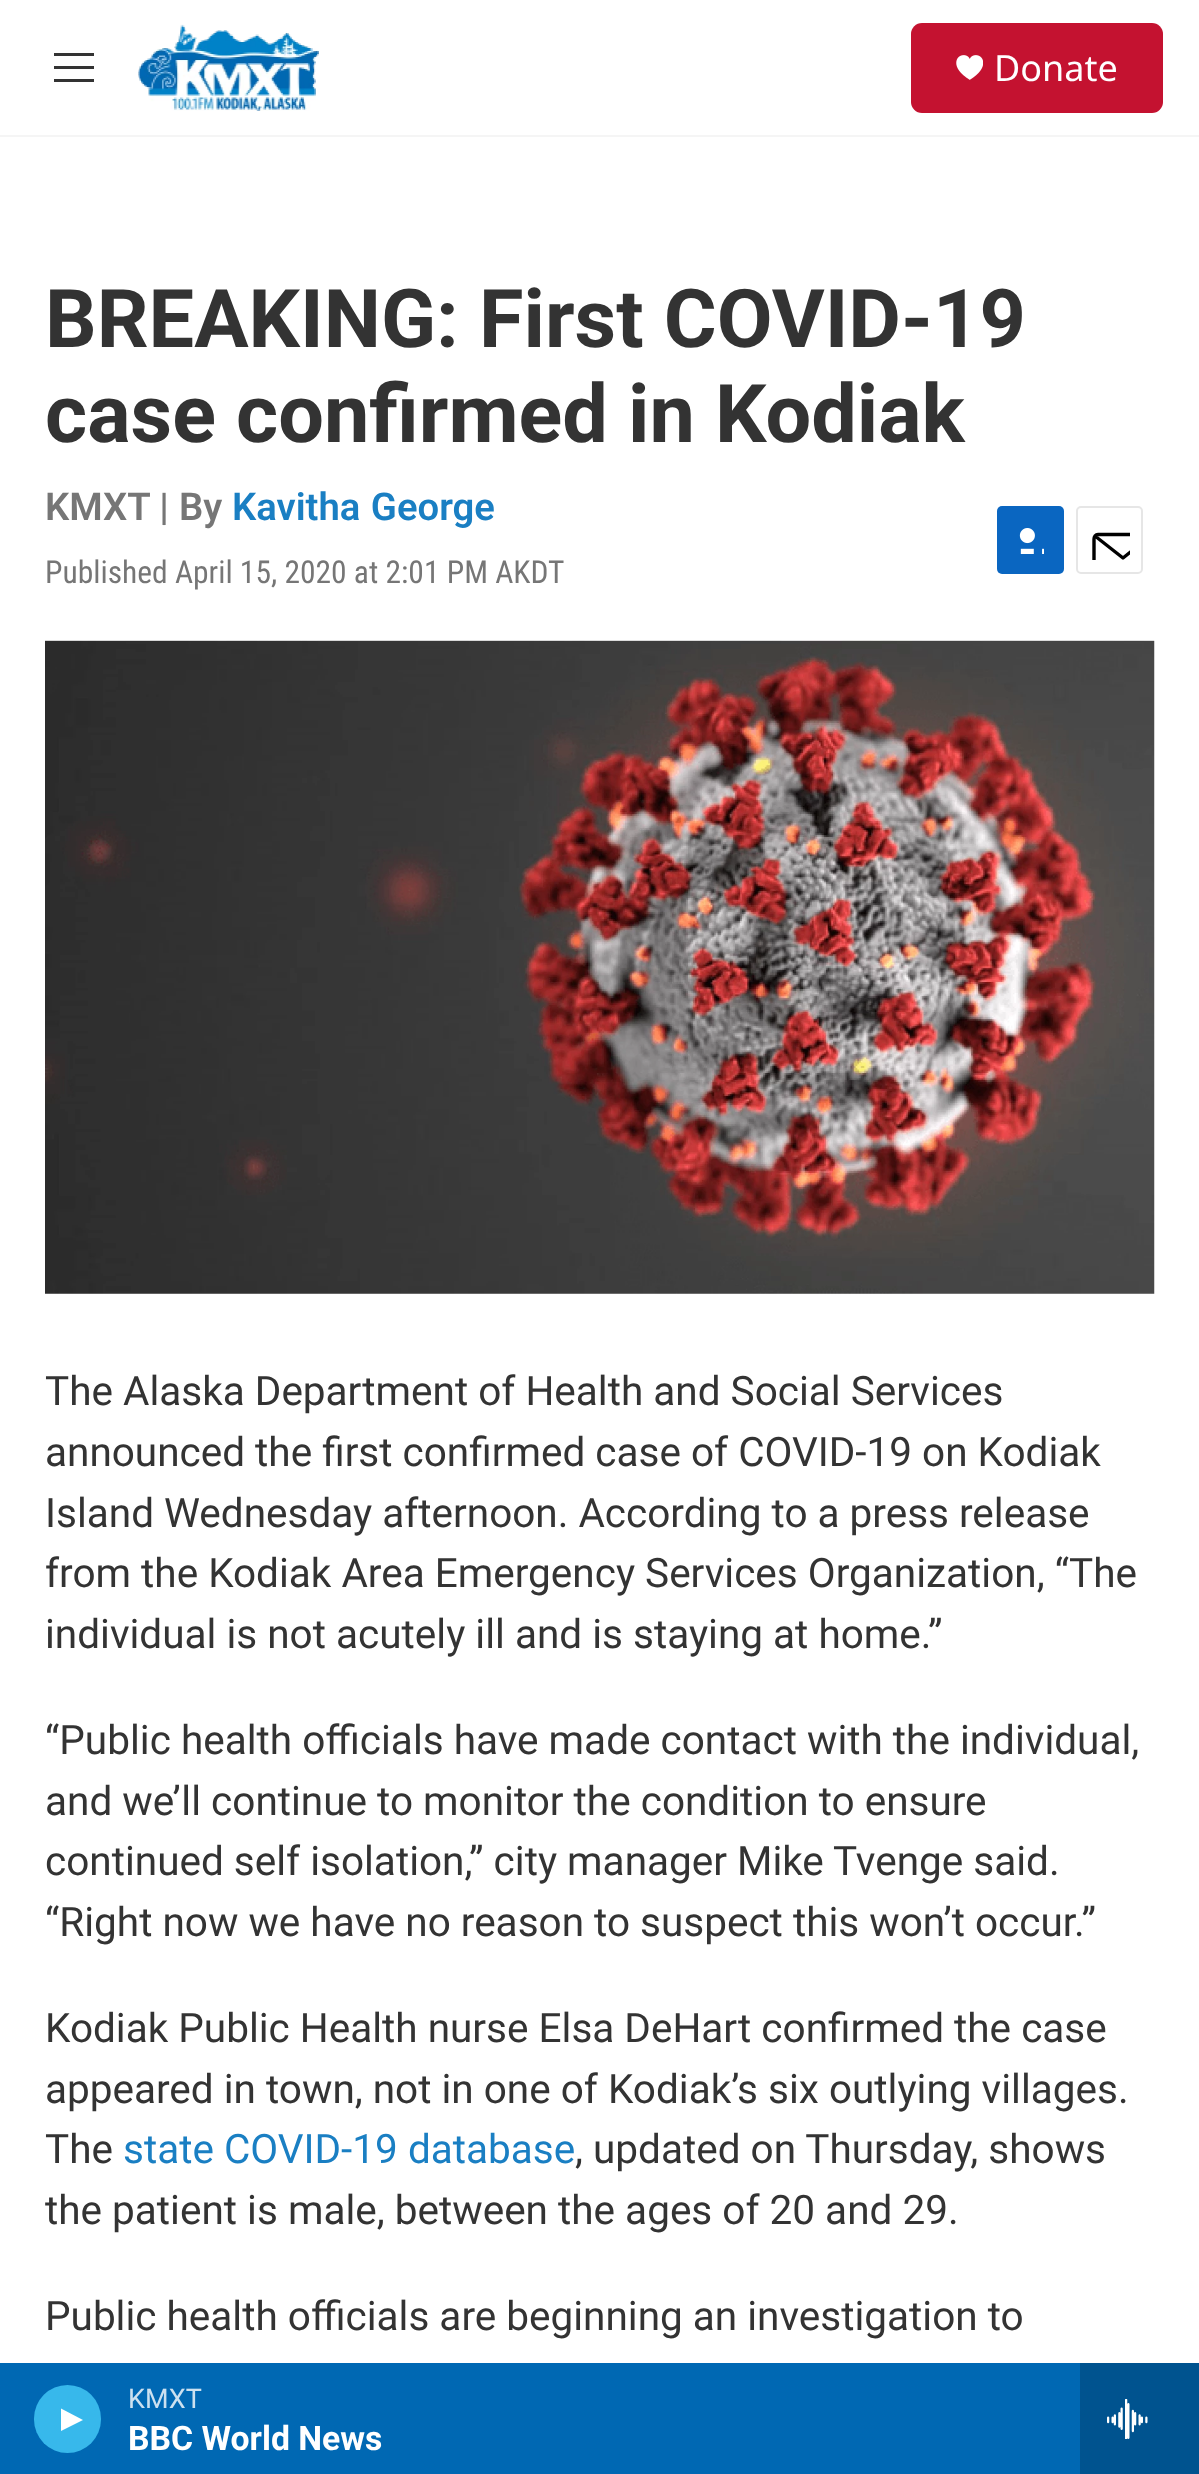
<!DOCTYPE html>
<meta charset="utf-8">
<style>body { margin: 0 } canvas { display: block }</style>
<canvas id="canvas" width="1199" height="2474"></canvas>
<img id="img1" src="img_01.png" hidden>
<img id="img2" src="img_02.png" hidden>
<img id="img3" src="img_03.png" hidden>
<img id="img4" src="img_04.png" hidden>
<img id="img5" src="img_05.png" hidden>
<script>
window.onload = function () {
	const canvas = document.getElementById("canvas");
	const ctx = canvas.getContext("2d");
	ctx.miterLimit = 4;
	ctx.fontKerning = "normal";
	function txt(s, x, y) {
		ctx.fillText(s, x, y);
	}
	function fill(x, y, w, h) {
		ctx.fillRect(x, y, w, h);
	}
	function round(x, y, w, h, r) {
		ctx.beginPath();
		ctx.roundRect(x, y, w, h, r);
		ctx.fill();
	}
	function img(id, x, y, w, h) {
		ctx.drawImage(document.getElementById(id), x, y, w, h);
	}

	ctx.fillStyle = "#FFFFFF";
	fill(0, 0, 1199, 2474);
	ctx.fillStyle = "#F5F5F5";
	fill(0, 135, 1199, 2);
	ctx.fillStyle = "#333333";
	ctx.beginPath();
	ctx.moveTo(54, 69);
	ctx.lineTo(54, 66);
	ctx.lineTo(94, 66);
	ctx.lineTo(94, 69);
	ctx.closePath();
	ctx.moveTo(54, 56);
	ctx.lineTo(54, 53);
	ctx.lineTo(94, 53);
	ctx.lineTo(94, 56);
	ctx.closePath();
	ctx.moveTo(54, 82);
	ctx.lineTo(54, 79);
	ctx.lineTo(94, 79);
	ctx.lineTo(94, 82);
	ctx.closePath();
	ctx.fill("evenodd");
	img("img1", 138, 24, 181, 87);
	ctx.fillStyle = "#C41230";
	round(911, 23, 252, 90, 11);
	img("img2", 956, 55, 27, 25);
	ctx.fillStyle = "#0068B3";
	fill(0, 2363, 1080, 111);
	ctx.fillStyle = "#37B8EB";
	round(34, 2385, 67, 68, 33.5);
	ctx.fillStyle = "#FFFFFF";
	ctx.beginPath();
	ctx.moveTo(61, 2408.5);
	ctx.lineTo(83, 2420);
	ctx.lineTo(61, 2431);
	ctx.closePath();
	ctx.fill();
	ctx.fillStyle = "#00538F";
	fill(1080, 2363, 119, 111);
	img("img3", 1107, 2399, 41, 40);
	ctx.fillStyle = "#0A66C1";
	round(997, 506, 67, 68, 5);
	img("img4", 1019, 528, 25, 26);
	ctx.beginPath();
	ctx.roundRect(1077, 507, 65, 66, 4);
	ctx.strokeStyle = "#E6E6E6";
	ctx.lineWidth = 2;
	ctx.stroke();
	ctx.save();
	ctx.beginPath();
	ctx.rect(1089, 520, 41, 40);
	ctx.clip();
	ctx.beginPath();
	ctx.moveTo(1151.5, 569);
	ctx.bezierCurveTo(1151.5, 571.5, 1150, 573.5, 1147.5, 573.5);
	ctx.lineTo(1098, 573.5);
	ctx.bezierCurveTo(1095.5, 573.5, 1094, 571.5, 1094, 569);
	ctx.lineTo(1094, 539);
	ctx.bezierCurveTo(1094, 536.5, 1095.5, 534.5, 1098, 534.5);
	ctx.lineTo(1147.5, 534.5);
	ctx.bezierCurveTo(1150, 534.5, 1151.5, 536.5, 1151.5, 539);
	ctx.closePath();
	ctx.moveTo(1150.5, 536);
	ctx.lineTo(1123, 558);
	ctx.lineTo(1095, 536);
	ctx.strokeStyle = "#000000";
	ctx.lineWidth = 3.4;
	ctx.lineCap = "round";
	ctx.lineJoin = "round";
	ctx.stroke();
	ctx.restore();
	img("img5", 45, 640, 1110, 654);
	ctx.font = "36px Noto Sans";
	ctx.fillStyle = "#FFFFFF";
	txt("Donate", 994, 81);
	ctx.font = "27px Roboto";
	ctx.fillStyle = "#CCE1F0";
	txt("KMXT", 128, 2408);
	ctx.font = "bold 33.75px 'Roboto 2'";
	ctx.fillStyle = "#FFFFFF";
	txt("BBC World News", 128, 2450);
	ctx.font = "bold 81px Roboto";
	ctx.fillStyle = "#333333";
	txt("BREAKING: First COVID-19", 45, 347);
	txt("case confirmed in Kodiak", 45, 442);
	ctx.font = "600 38.25px Roboto";
	ctx.fillStyle = "#767676";
	txt("KMXT |", 45, 520);
	txt("By", 179, 520);
	ctx.wordSpacing = "1px";
	ctx.fillStyle = "#1A7FC3";
	txt("Kavitha George", 232, 520);
	ctx.wordSpacing = "0px";
	ctx.font = "31.5px Roboto Condensed";
	ctx.fillStyle = "#767676";
	txt("Published April 15, 2020 at 2:01 PM AKDT", 45, 583);
	ctx.font = "40.5px Roboto";
	ctx.fillStyle = "#333333";
	txt("The Alaska Department of Health and Social Services", 45, 1405);
	txt("announced the first confirmed case of COVID-19 on Kodiak", 45, 1466);
	txt("Island Wednesday afternoon. According to a press release", 45, 1527);
	txt("from the Kodiak Area Emergency Services Organization, “The", 45, 1587);
	txt("individual is not acutely ill and is staying at home.”", 45, 1648);
	txt("“Public health officials have made contact with the individual,", 45, 1754);
	txt("and we’ll continue to monitor the condition to ensure", 45, 1815);
	txt("continued self isolation,” city manager Mike Tvenge said.", 45, 1875);
	txt("“Right now we have no reason to suspect this won’t occur.”", 45, 1936);
	txt("Kodiak Public Health nurse Elsa DeHart confirmed the case", 45, 2042);
	txt("appeared in town, not in one of Kodiak’s six outlying villages.", 45, 2103);
	txt("The", 45, 2163);
	ctx.fillStyle = "#1A7FC3";
	txt("state COVID-19 database", 123, 2163);
	ctx.fillStyle = "#333333";
	txt(", updated on Thursday, shows", 575, 2163);
	txt("the patient is male, between the ages of 20 and 29.", 45, 2224);
	txt("Public health officials are beginning an investigation to", 45, 2330);
};
</script>
